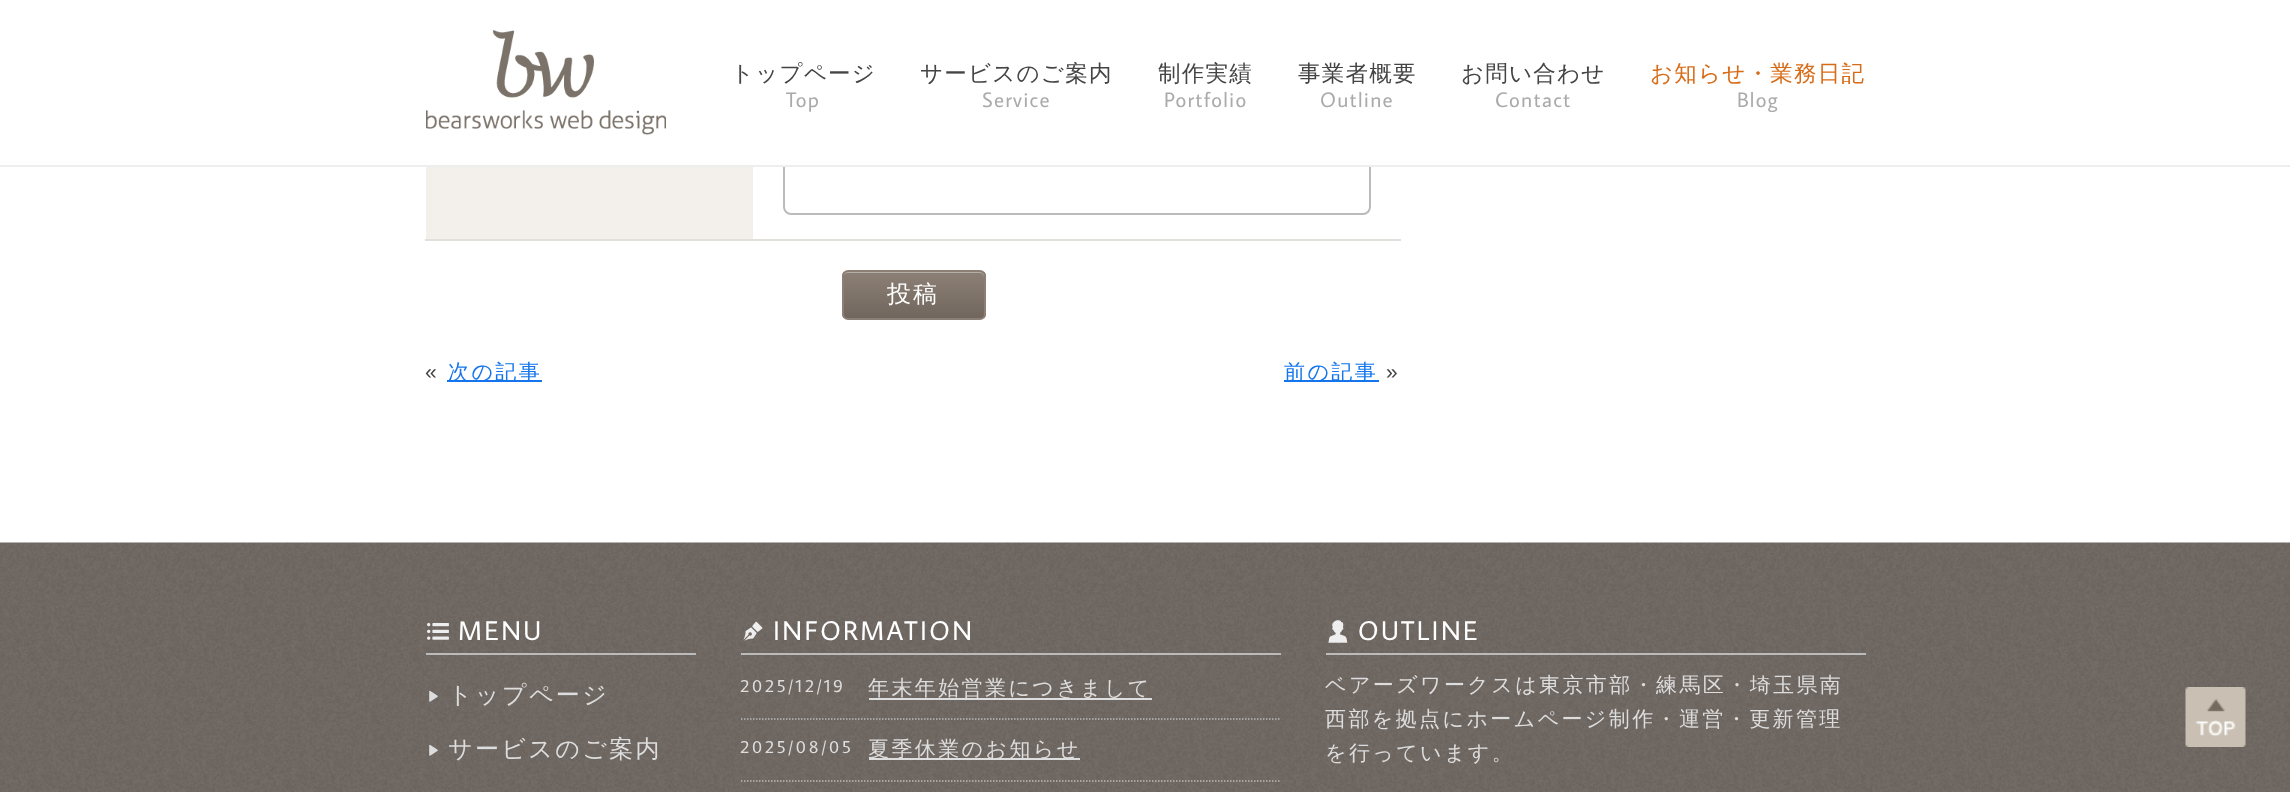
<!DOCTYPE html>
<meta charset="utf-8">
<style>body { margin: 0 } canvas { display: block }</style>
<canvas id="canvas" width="2290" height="792"></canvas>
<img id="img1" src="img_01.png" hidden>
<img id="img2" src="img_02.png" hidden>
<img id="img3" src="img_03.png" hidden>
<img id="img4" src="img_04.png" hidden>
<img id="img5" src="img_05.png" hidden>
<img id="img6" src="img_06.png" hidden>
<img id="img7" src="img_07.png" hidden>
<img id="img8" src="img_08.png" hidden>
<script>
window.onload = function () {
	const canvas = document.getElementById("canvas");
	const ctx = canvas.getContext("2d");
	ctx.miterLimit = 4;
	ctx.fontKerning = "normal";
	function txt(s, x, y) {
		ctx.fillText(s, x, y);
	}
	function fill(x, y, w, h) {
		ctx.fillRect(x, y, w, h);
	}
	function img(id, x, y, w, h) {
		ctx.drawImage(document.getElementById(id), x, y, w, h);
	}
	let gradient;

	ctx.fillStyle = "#FFFFFF";
	fill(0, 0, 2290, 792);
	ctx.beginPath();
	ctx.roundRect(784, -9, 586, 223, 7);
	ctx.strokeStyle = "#BBBBBB";
	ctx.lineWidth = 2;
	ctx.stroke();
	fill(783, 0, 588, 165);
	ctx.fillStyle = "#EEEEEE";
	fill(0, 165, 2290, 2);
	img("img1", 426, 30, 240, 105);
	ctx.fillStyle = "#E3DFDA";
	fill(425, 239, 976, 2);
	ctx.fillStyle = "#F3F0EC";
	fill(426, 167, 327, 72);
	ctx.save();
	ctx.beginPath();
	ctx.roundRect(842, 270, 144, 50, 6);
	ctx.clip();
	gradient = ctx.createLinearGradient(914, 272, 914, 318);
	gradient.addColorStop(0, "#8C8076");
	gradient.addColorStop(1, "#71665D");
	ctx.fillStyle = gradient;
	fill(842, 272, 144, 46);
	ctx.restore();
	ctx.fillStyle = "#B4AEA9";
	ctx.beginPath();
	ctx.moveTo(848, 273);
	ctx.lineTo(980, 273);
	ctx.bezierCurveTo(982, 273, 984, 275, 984, 278);
	ctx.lineTo(984, 277);
	ctx.bezierCurveTo(984, 274, 982, 272, 979, 272);
	ctx.lineTo(848, 272);
	ctx.bezierCurveTo(845, 272, 843, 274, 843, 277);
	ctx.lineTo(843, 278);
	ctx.bezierCurveTo(843, 275, 845, 273, 848, 273);
	ctx.closePath();
	ctx.fill();
	ctx.beginPath();
	ctx.roundRect(843, 271, 142, 48, 5);
	ctx.strokeStyle = "#8C8076";
	ctx.stroke();
	ctx.fillStyle = "#1475EC";
	fill(447, 380, 95, 2);
	fill(1284, 380, 95, 2);
	img("img2", 0, 542, 2290, 250);
	ctx.fillStyle = "#BBBBBB";
	fill(426, 653, 270, 2);
	img("img3", 427, 623, 22, 17);
	img("img4", 429, 690, 9, 12);
	img("img5", 429, 744, 9, 12);
	fill(741, 653, 540, 2);
	img("img6", 743, 621, 20, 20);
	ctx.beginPath();
	ctx.moveTo(741, 719);
	ctx.lineTo(1281, 719);
	ctx.strokeStyle = "#BBBBBB";
	ctx.lineWidth = 1.5;
	ctx.setLineDash([1.5, 1.5]);
	ctx.stroke();
	ctx.fillStyle = "#DDDDDD";
	fill(869, 698, 283, 2);
	ctx.beginPath();
	ctx.moveTo(741, 781);
	ctx.lineTo(1281, 781);
	ctx.stroke();
	fill(869, 758, 211, 2);
	ctx.fillStyle = "#BBBBBB";
	fill(1326, 653, 540, 2);
	img("img7", 1328, 620, 20, 23);
	img("img8", 2185, 687, 61, 60);
	ctx.letterSpacing = "1.25px";
	ctx.font = "500 22.5px WenQuanYi Zen Hei";
	ctx.fillStyle = "#444444";
	txt("トップページ", 731, 81);
	ctx.font = "21px Average Sans";
	ctx.fillStyle = "#AAAAAA";
	txt("Top", 786, 107);
	ctx.font = "500 22.5px WenQuanYi Zen Hei";
	ctx.fillStyle = "#444444";
	txt("サービスのご案内", 920, 81);
	ctx.font = "21px Average Sans";
	ctx.fillStyle = "#AAAAAA";
	txt("Service", 982, 107);
	ctx.font = "500 22.5px WenQuanYi Zen Hei";
	ctx.fillStyle = "#444444";
	txt("制作実績", 1158, 81);
	ctx.font = "21px Average Sans";
	ctx.fillStyle = "#AAAAAA";
	txt("Portfolio", 1164, 107);
	ctx.font = "500 22.5px WenQuanYi Zen Hei";
	ctx.fillStyle = "#444444";
	txt("事業者概要", 1298, 81);
	ctx.font = "21px Average Sans";
	ctx.fillStyle = "#AAAAAA";
	txt("Outline", 1320, 107);
	ctx.font = "500 22.5px WenQuanYi Zen Hei";
	ctx.fillStyle = "#444444";
	txt("お問い合わせ", 1461, 81);
	ctx.font = "21px Average Sans";
	ctx.fillStyle = "#AAAAAA";
	txt("Contact", 1495, 107);
	ctx.font = "500 22.5px WenQuanYi Zen Hei";
	ctx.fillStyle = "#D76C18";
	txt("お知らせ・業務日記", 1650, 81);
	ctx.font = "21px Average Sans";
	ctx.fillStyle = "#AAAAAA";
	txt("Blog", 1737, 107);
	ctx.letterSpacing = "2px";
	ctx.font = "500 24px WenQuanYi Zen Hei";
	ctx.fillStyle = "#FFFFFF";
	txt("投稿", 887, 302);
	ctx.letterSpacing = "2.4px";
	ctx.font = "21px Liberation Sans";
	ctx.fillStyle = "#444444";
	txt("«", 425, 379);
	ctx.font = "500 21px WenQuanYi Zen Hei";
	ctx.fillStyle = "#1475EC";
	txt("次の記事", 448, 379);
	txt("前の記事", 1284, 379);
	ctx.font = "21px Liberation Sans";
	ctx.fillStyle = "#444444";
	txt("»", 1386, 379);
	ctx.font = "27px Average Sans";
	ctx.fillStyle = "#FFFFFF";
	txt("MENU", 458, 640);
	ctx.font = "500 24px WenQuanYi Zen Hei";
	ctx.fillStyle = "#DDDDDD";
	txt("トップページ", 448, 703);
	txt("サービスのご案内", 448, 757);
	ctx.font = "27px Average Sans";
	ctx.fillStyle = "#FFFFFF";
	txt("INFORMATION", 773, 640);
	ctx.font = "18px Average Sans";
	ctx.fillStyle = "#DDDDDD";
	txt("2025/12/19", 740, 692);
	ctx.font = "500 21px WenQuanYi Zen Hei";
	txt("年末年始営業につきまして", 868, 695);
	ctx.font = "18px Average Sans";
	txt("2025/08/05", 740, 753);
	ctx.font = "500 21px WenQuanYi Zen Hei";
	txt("夏季休業のお知らせ", 868, 756);
	ctx.font = "27px Average Sans";
	ctx.fillStyle = "#FFFFFF";
	txt("OUTLINE", 1358, 640);
	ctx.font = "500 21px WenQuanYi Zen Hei";
	ctx.fillStyle = "#DDDDDD";
	txt("ベアーズワークスは東京市部・練馬区・埼玉県南", 1325, 692);
	txt("西部を拠点にホームページ制作・運営・更新管理", 1325, 726);
	txt("を行っています。", 1325, 760);
};
</script>
